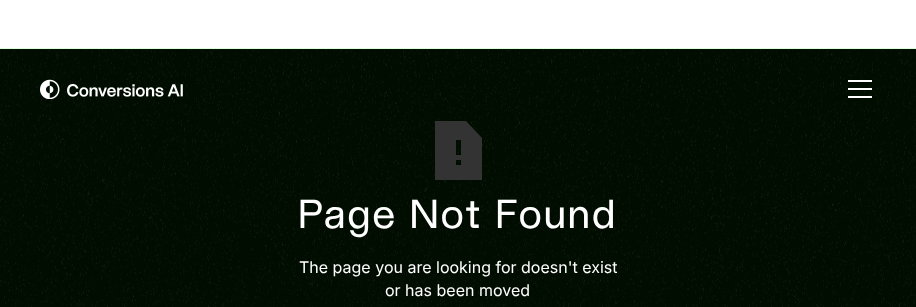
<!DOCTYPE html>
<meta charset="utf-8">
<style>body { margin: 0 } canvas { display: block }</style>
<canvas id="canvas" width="916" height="307"></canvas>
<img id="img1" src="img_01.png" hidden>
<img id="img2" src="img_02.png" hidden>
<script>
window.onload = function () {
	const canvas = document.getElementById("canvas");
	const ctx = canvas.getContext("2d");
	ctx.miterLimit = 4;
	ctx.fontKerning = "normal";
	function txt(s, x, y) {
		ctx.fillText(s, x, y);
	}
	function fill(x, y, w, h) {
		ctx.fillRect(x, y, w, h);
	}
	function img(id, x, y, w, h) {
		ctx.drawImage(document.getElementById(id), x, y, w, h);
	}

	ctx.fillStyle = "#010D01";
	fill(0, 0, 916, 307);
	img("img1", 0, 49, 916, 258);
	ctx.fillStyle = "#FFFFFF";
	fill(0, 0, 916, 48);
	ctx.fillStyle = "#DBFFDB";
	fill(0, 48, 916, 1);
	img("img2", 40, 79, 143, 20);
	ctx.fillStyle = "#FFFFFF";
	fill(848, 80, 24, 2);
	fill(848, 88, 24, 2);
	fill(848, 96, 24, 2);
	ctx.fillStyle = "#333333";
	ctx.beginPath();
	ctx.moveTo(435, 121);
	ctx.lineTo(466, 121);
	ctx.lineTo(482, 138);
	ctx.lineTo(482, 180);
	ctx.lineTo(435, 180);
	ctx.closePath();
	ctx.moveTo(456, 140);
	ctx.lineTo(461, 140);
	ctx.lineTo(461, 155);
	ctx.lineTo(456, 155);
	ctx.closePath();
	ctx.moveTo(456, 160);
	ctx.lineTo(461, 160);
	ctx.lineTo(461, 165);
	ctx.lineTo(456, 165);
	ctx.closePath();
	ctx.fill("evenodd");
	ctx.letterSpacing = "2px";
	ctx.font = "40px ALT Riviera";
	ctx.fillStyle = "#FFFFFF";
	txt("Page Not Found", 298, 228);
	ctx.letterSpacing = "0px";
	ctx.font = "16px Inter";
	txt("The page you are looking for doesn't exist", 299, 273);
	txt("or has been moved", 385, 296);
};
</script>
